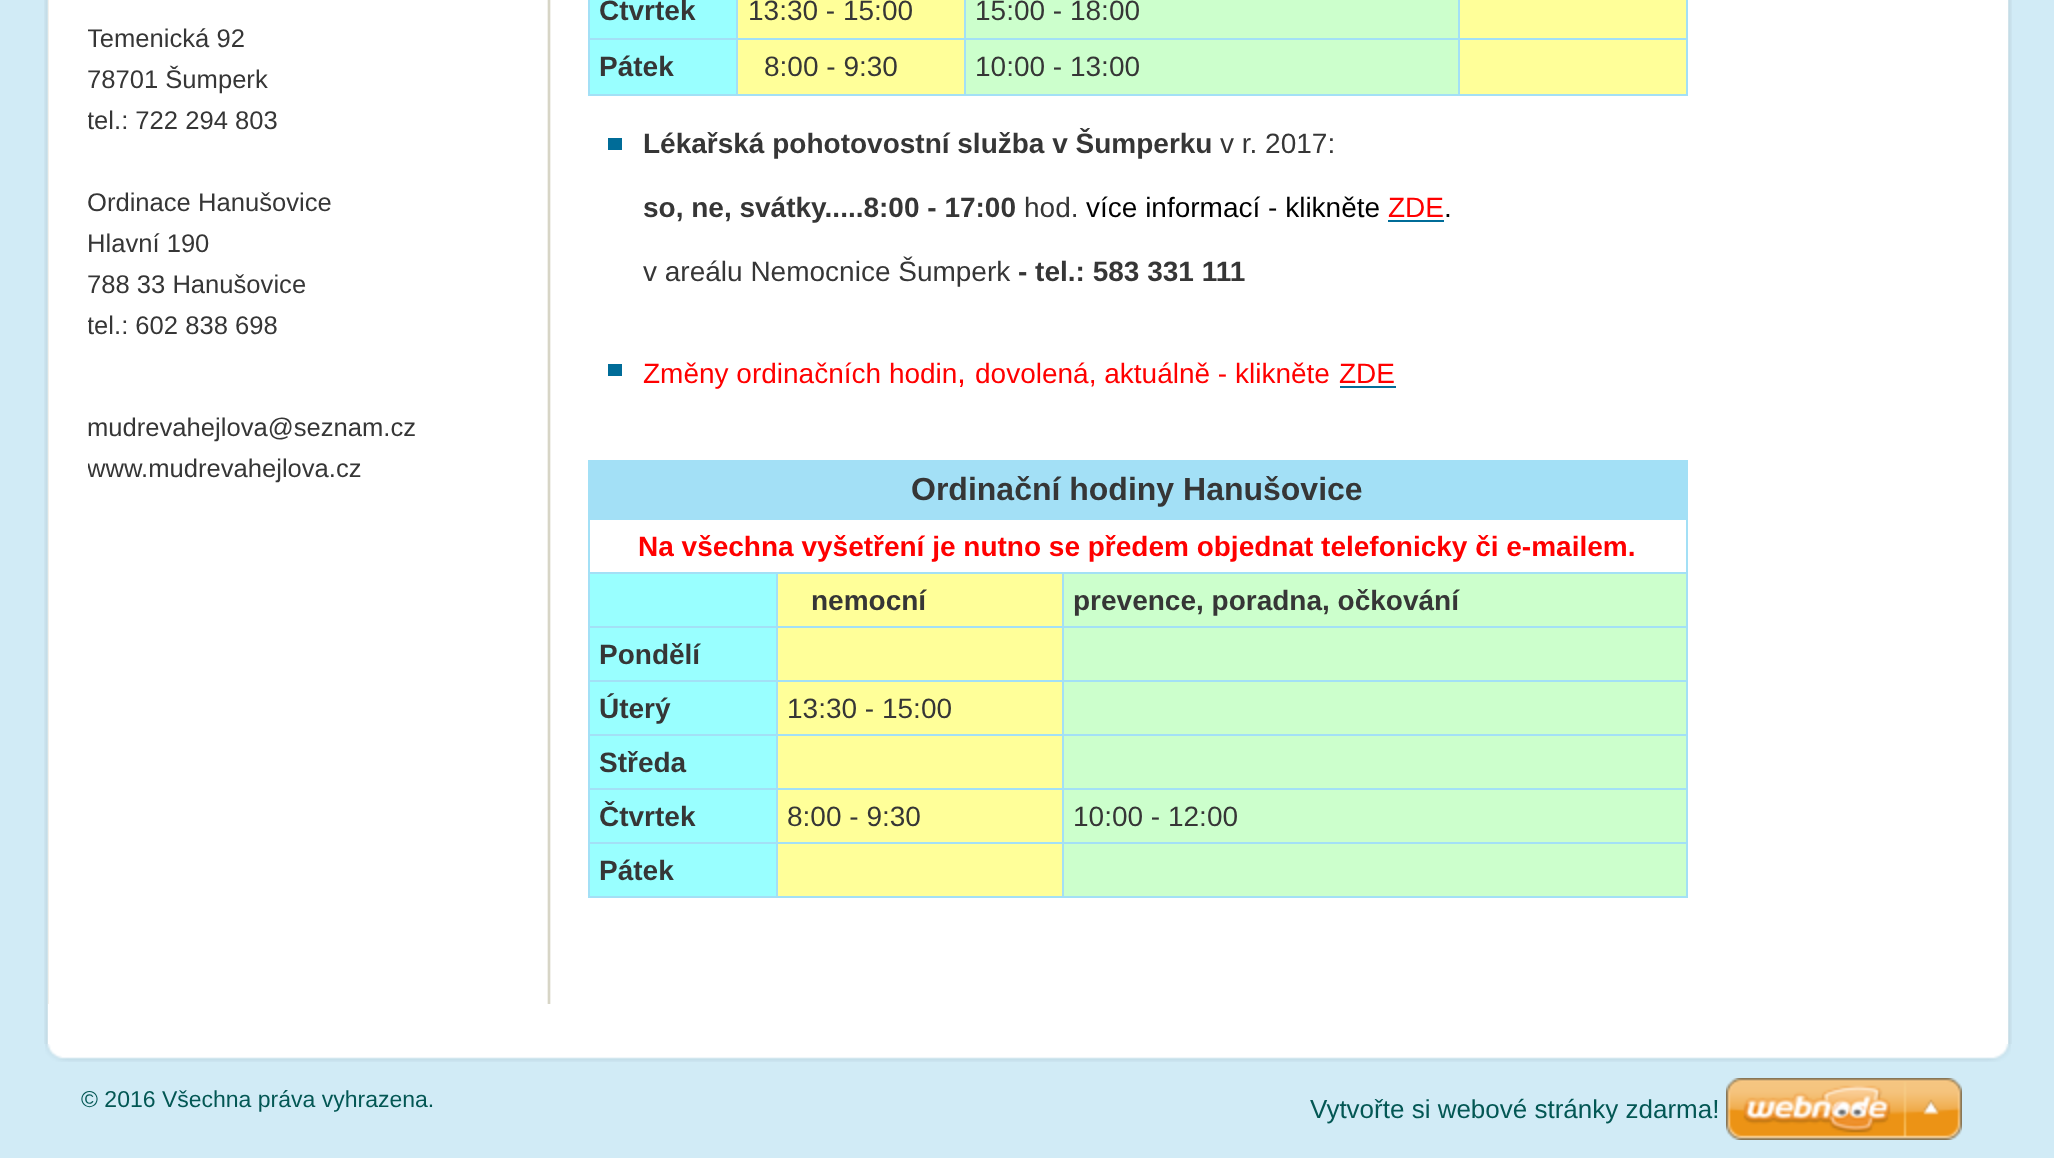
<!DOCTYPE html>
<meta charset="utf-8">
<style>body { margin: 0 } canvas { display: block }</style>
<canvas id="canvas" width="2054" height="1158"></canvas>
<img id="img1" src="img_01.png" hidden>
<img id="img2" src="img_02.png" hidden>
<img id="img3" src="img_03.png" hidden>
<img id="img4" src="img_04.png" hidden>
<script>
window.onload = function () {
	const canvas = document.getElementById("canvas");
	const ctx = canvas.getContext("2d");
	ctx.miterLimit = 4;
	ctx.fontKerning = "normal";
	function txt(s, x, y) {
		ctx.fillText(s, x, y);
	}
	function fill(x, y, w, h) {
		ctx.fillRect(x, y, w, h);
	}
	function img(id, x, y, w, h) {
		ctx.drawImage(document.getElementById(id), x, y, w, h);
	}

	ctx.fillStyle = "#D1EBF6";
	fill(0, 0, 2054, 1158);
	img("img1", 45, 1044, 1966, 18);
	img("img2", 44, 0, 1968, 1044);
	ctx.fillStyle = "#FFFFFF";
	fill(2007, 0, 1, 1004);
	img("img3", 48, 0, 503, 1004);
	ctx.fillStyle = "#99FFFF";
	fill(590, 0, 146, 38);
	ctx.fillStyle = "#FFFF99";
	fill(738, 0, 226, 38);
	ctx.fillStyle = "#A3E0F6";
	fill(1458, 38, 230, 2);
	fill(1686, 0, 2, 96);
	fill(1458, 94, 230, 2);
	fill(1458, 38, 2, 58);
	fill(964, 38, 496, 2);
	fill(964, 94, 496, 2);
	fill(964, 38, 2, 58);
	fill(736, 38, 230, 2);
	fill(736, 94, 230, 2);
	fill(736, 38, 2, 58);
	fill(588, 38, 150, 2);
	fill(736, 0, 2, 40);
	ctx.fillStyle = "#CCFFCC";
	fill(966, 0, 492, 38);
	ctx.fillStyle = "#A3E0F6";
	fill(964, 0, 2, 40);
	ctx.fillStyle = "#FFFF99";
	fill(1460, 0, 226, 38);
	ctx.fillStyle = "#A3E0F6";
	fill(1458, 0, 2, 40);
	ctx.fillStyle = "#99FFFF";
	fill(590, 40, 146, 54);
	ctx.fillStyle = "#A3E0F6";
	fill(588, 94, 150, 2);
	fill(588, 0, 2, 96);
	ctx.fillStyle = "#FFFF99";
	fill(738, 40, 226, 54);
	ctx.fillStyle = "#CCFFCC";
	fill(966, 40, 492, 54);
	ctx.fillStyle = "#FFFF99";
	fill(1460, 40, 226, 54);
	ctx.fillStyle = "#006C98";
	fill(608, 138, 14, 12);
	fill(1388, 220, 56, 2);
	fill(608, 364, 14, 12);
	fill(1340, 386, 56, 2);
	ctx.fillStyle = "#A3E0F6";
	fill(588, 462, 1098, 56);
	fill(588, 460, 1100, 2);
	fill(588, 518, 1100, 2);
	fill(1062, 572, 626, 2);
	fill(1062, 626, 626, 2);
	fill(1062, 680, 626, 2);
	fill(1062, 734, 626, 2);
	fill(1062, 788, 626, 2);
	fill(1062, 842, 626, 2);
	fill(1686, 842, 2, 56);
	fill(1686, 788, 2, 56);
	fill(1686, 734, 2, 56);
	fill(1686, 680, 2, 56);
	fill(1686, 626, 2, 56);
	fill(1686, 572, 2, 56);
	fill(1686, 518, 2, 56);
	fill(1686, 460, 2, 60);
	fill(1062, 896, 626, 2);
	fill(1062, 842, 2, 56);
	fill(776, 842, 288, 2);
	fill(1062, 788, 2, 56);
	fill(776, 788, 288, 2);
	fill(1062, 734, 2, 56);
	fill(776, 734, 288, 2);
	fill(1062, 680, 2, 56);
	fill(776, 680, 288, 2);
	fill(1062, 626, 2, 56);
	fill(776, 626, 288, 2);
	fill(1062, 572, 2, 56);
	fill(776, 572, 288, 2);
	fill(776, 896, 288, 2);
	fill(776, 842, 2, 56);
	fill(588, 842, 190, 2);
	fill(776, 788, 2, 56);
	fill(588, 788, 190, 2);
	fill(776, 734, 2, 56);
	fill(588, 734, 190, 2);
	fill(776, 680, 2, 56);
	fill(588, 680, 190, 2);
	fill(776, 626, 2, 56);
	fill(588, 626, 190, 2);
	fill(776, 572, 2, 56);
	fill(588, 572, 190, 2);
	fill(588, 896, 190, 2);
	fill(588, 842, 2, 56);
	fill(588, 788, 2, 56);
	fill(588, 734, 2, 56);
	fill(588, 680, 2, 56);
	fill(588, 626, 2, 56);
	fill(588, 572, 2, 56);
	fill(588, 518, 2, 56);
	ctx.fillStyle = "#99FFFF";
	fill(590, 574, 186, 52);
	ctx.fillStyle = "#FFFF99";
	fill(778, 574, 284, 52);
	ctx.fillStyle = "#CCFFCC";
	fill(1064, 574, 622, 52);
	ctx.fillStyle = "#99FFFF";
	fill(590, 628, 186, 52);
	ctx.fillStyle = "#FFFF99";
	fill(778, 628, 284, 52);
	ctx.fillStyle = "#CCFFCC";
	fill(1064, 628, 622, 52);
	ctx.fillStyle = "#99FFFF";
	fill(590, 682, 186, 52);
	ctx.fillStyle = "#FFFF99";
	fill(778, 682, 284, 52);
	ctx.fillStyle = "#CCFFCC";
	fill(1064, 682, 622, 52);
	ctx.fillStyle = "#99FFFF";
	fill(590, 736, 186, 52);
	ctx.fillStyle = "#FFFF99";
	fill(778, 736, 284, 52);
	ctx.fillStyle = "#CCFFCC";
	fill(1064, 736, 622, 52);
	ctx.fillStyle = "#99FFFF";
	fill(590, 790, 186, 52);
	ctx.fillStyle = "#FFFF99";
	fill(778, 790, 284, 52);
	ctx.fillStyle = "#CCFFCC";
	fill(1064, 790, 622, 52);
	ctx.fillStyle = "#99FFFF";
	fill(590, 844, 186, 52);
	ctx.fillStyle = "#FFFF99";
	fill(778, 844, 284, 52);
	ctx.fillStyle = "#CCFFCC";
	fill(1064, 844, 622, 52);
	ctx.fillStyle = "#FFFFFF";
	fill(48, 1004, 1960, 40);
	img("img4", 1726, 1078, 236, 62);
	ctx.save();
	ctx.beginPath();
	ctx.rect(88, 0, 420, 510);
	ctx.clip();
	ctx.font = "25.6px Liberation Sans";
	ctx.fillStyle = "#363636";
	txt("Temenická 92", 87, 47);
	ctx.restore();
	ctx.font = "25.6px Liberation Sans";
	ctx.fillStyle = "#363636";
	txt("78701 Šumperk", 87, 88);
	ctx.save();
	ctx.beginPath();
	ctx.rect(88, 0, 420, 510);
	ctx.clip();
	txt("tel.: 722 294 803", 87, 129);
	ctx.restore();
	txt("Ordinace Hanušovice", 87, 211);
	txt("Hlavní 190", 87, 252);
	txt("788 33 Hanušovice", 87, 293);
	ctx.save();
	ctx.beginPath();
	ctx.rect(88, 0, 420, 510);
	ctx.clip();
	txt("tel.: 602 838 698", 87, 334);
	ctx.restore();
	txt("mudrevahejlova@seznam.cz", 87, 436);
	ctx.save();
	ctx.beginPath();
	ctx.rect(88, 0, 420, 510);
	ctx.clip();
	txt("www.mudrevahejlova.cz", 87, 477);
	ctx.restore();
	ctx.font = "bold 28px Liberation Sans";
	txt("Čtvrtek", 599, 20);
	ctx.font = "28px Liberation Sans";
	txt("13:30 - 15:00", 748, 20);
	txt("15:00 - 18:00", 975, 20);
	ctx.font = "bold 28px Liberation Sans";
	txt("Pátek", 599, 76);
	ctx.font = "28px Liberation Sans";
	txt("8:00 - 9:30", 764, 76);
	txt("10:00 - 13:00", 975, 76);
	ctx.font = "bold 28px Liberation Sans";
	txt("Lékařská pohotovostní služba v Šumperku", 643, 153);
	ctx.font = "28px Liberation Sans";
	txt("v r. 2017:", 1220, 153);
	ctx.font = "bold 28px Liberation Sans";
	txt("so, ne, svátky.....8:00 - 17:00", 643, 217);
	ctx.font = "28px Liberation Sans";
	txt("hod.", 1024, 217);
	ctx.fillStyle = "#000000";
	txt("více informací - klikněte", 1086, 217);
	ctx.fillStyle = "#FF0000";
	txt("ZDE", 1388, 217);
	ctx.fillStyle = "#000000";
	txt(".", 1444, 217);
	ctx.fillStyle = "#363636";
	txt("v areálu Nemocnice Šumperk", 643, 281);
	ctx.font = "bold 28px Liberation Sans";
	txt("- tel.: 583 331 111", 1018, 281);
	ctx.font = "28px Liberation Sans";
	ctx.fillStyle = "#FF0000";
	txt("Změny ordinačních hodin", 643, 383);
	ctx.font = "32px Liberation Sans";
	txt(",", 957, 383);
	ctx.font = "28px Liberation Sans";
	txt("dovolená, aktuálně - klikněte", 975, 383);
	txt("ZDE", 1339, 383);
	ctx.font = "bold 32px Liberation Sans";
	ctx.fillStyle = "#363636";
	txt("Ordinační hodiny Hanušovice", 911, 500);
	ctx.font = "bold 28px Liberation Sans";
	ctx.fillStyle = "#FF0000";
	txt("Na všechna vyšetření je nutno se předem objednat telefonicky či e-mailem.", 638, 556);
	ctx.fillStyle = "#363636";
	txt("nemocní", 811, 610);
	txt("prevence, poradna, očkování", 1073, 610);
	txt("Pondělí", 599, 664);
	txt("Úterý", 599, 718);
	ctx.font = "28px Liberation Sans";
	txt("13:30 - 15:00", 787, 718);
	ctx.font = "bold 28px Liberation Sans";
	txt("Středa", 599, 772);
	txt("Čtvrtek", 599, 826);
	ctx.font = "28px Liberation Sans";
	txt("8:00 - 9:30", 787, 826);
	txt("10:00 - 12:00", 1073, 826);
	ctx.font = "bold 28px Liberation Sans";
	txt("Pátek", 599, 880);
	ctx.font = "23px Liberation Sans";
	ctx.fillStyle = "#035754";
	txt("© 2016 Všechna práva vyhrazena.", 81, 1107);
	ctx.font = "26px Liberation Sans";
	txt("Vytvořte si webové stránky zdarma!", 1310, 1118);
};
</script>
